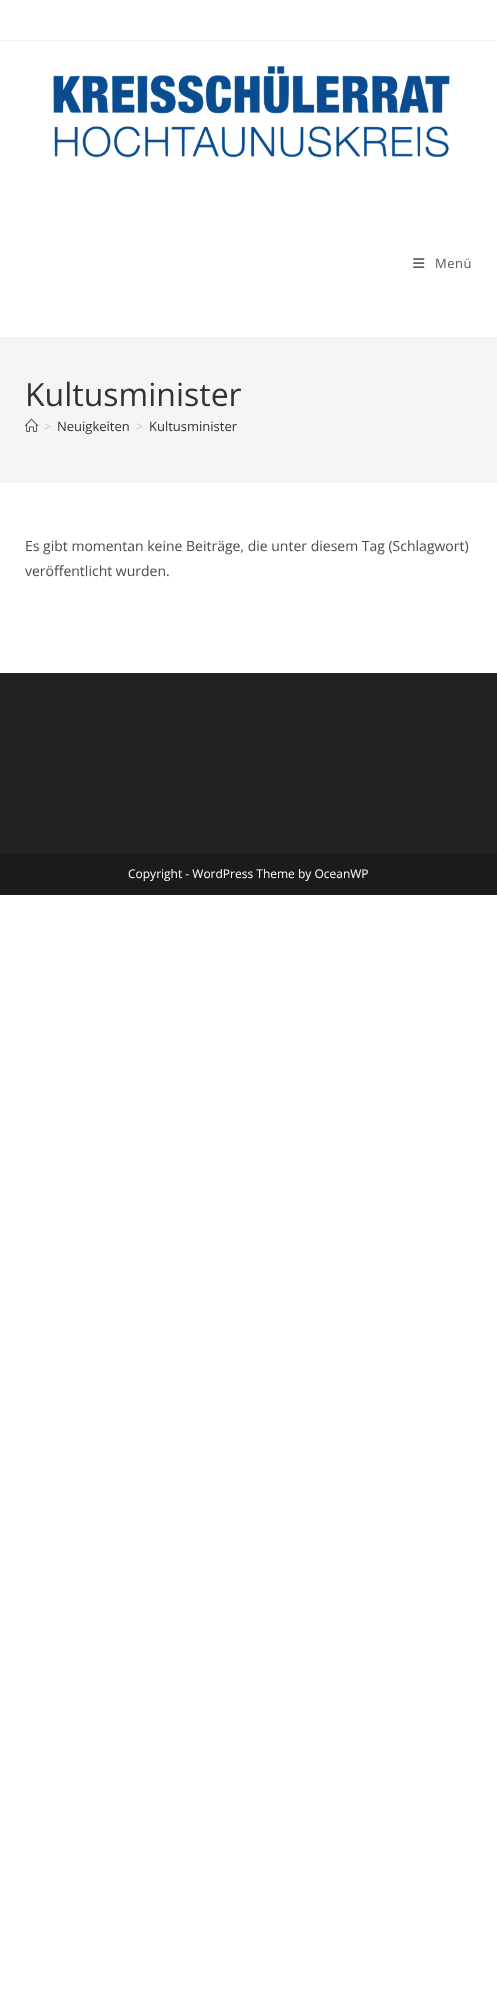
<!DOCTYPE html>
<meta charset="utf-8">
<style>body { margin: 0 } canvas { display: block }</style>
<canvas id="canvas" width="497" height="2008"></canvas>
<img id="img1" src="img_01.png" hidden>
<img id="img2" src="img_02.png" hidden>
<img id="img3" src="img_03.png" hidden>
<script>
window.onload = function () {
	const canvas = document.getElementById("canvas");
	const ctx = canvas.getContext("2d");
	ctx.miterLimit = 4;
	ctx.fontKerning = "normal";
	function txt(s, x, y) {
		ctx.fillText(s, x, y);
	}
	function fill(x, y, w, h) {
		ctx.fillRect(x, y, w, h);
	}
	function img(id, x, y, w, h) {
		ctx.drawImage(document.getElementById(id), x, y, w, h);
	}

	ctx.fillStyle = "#FFFFFF";
	fill(0, 0, 497, 2008);
	ctx.fillStyle = "#F1F1F1";
	fill(0, 40, 497, 1);
	fill(0, 337, 497, 1);
	img("img1", 53, 65, 397, 93);
	img("img2", 413, 258, 12, 10);
	ctx.fillStyle = "#F5F5F5";
	fill(0, 338, 497, 145);
	img("img3", 25, 418, 13, 14);
	ctx.fillStyle = "#222222";
	fill(0, 673, 497, 180);
	ctx.fillStyle = "#1B1B1B";
	fill(0, 853, 497, 42);
	ctx.letterSpacing = "0.5px";
	ctx.font = "13px Open Sans";
	ctx.fillStyle = "#555555";
	txt("Menü", 435, 268);
	ctx.letterSpacing = "0px";
	ctx.font = "32px Open Sans";
	ctx.fillStyle = "#333333";
	txt("Kultusminister", 25, 406);
	ctx.font = "13px Open Sans";
	ctx.fillStyle = "#C6C6C6";
	txt(">", 44, 431);
	ctx.fillStyle = "#333333";
	txt("Neuigkeiten", 57, 431);
	ctx.fillStyle = "#C6C6C6";
	txt(">", 136, 431);
	ctx.fillStyle = "#333333";
	txt("Kultusminister", 149, 431);
	ctx.font = "14px Open Sans";
	ctx.fillStyle = "#4A4A4A";
	txt("Es gibt momentan keine Beiträge, die unter diesem Tag (Schlagwort)", 25, 551);
	txt("veröffentlicht wurden.", 25, 576);
	ctx.font = "12px Open Sans";
	ctx.fillStyle = "#FFFFFF";
	txt("Copyright - WordPress Theme by OceanWP", 128, 878);
};
</script>
